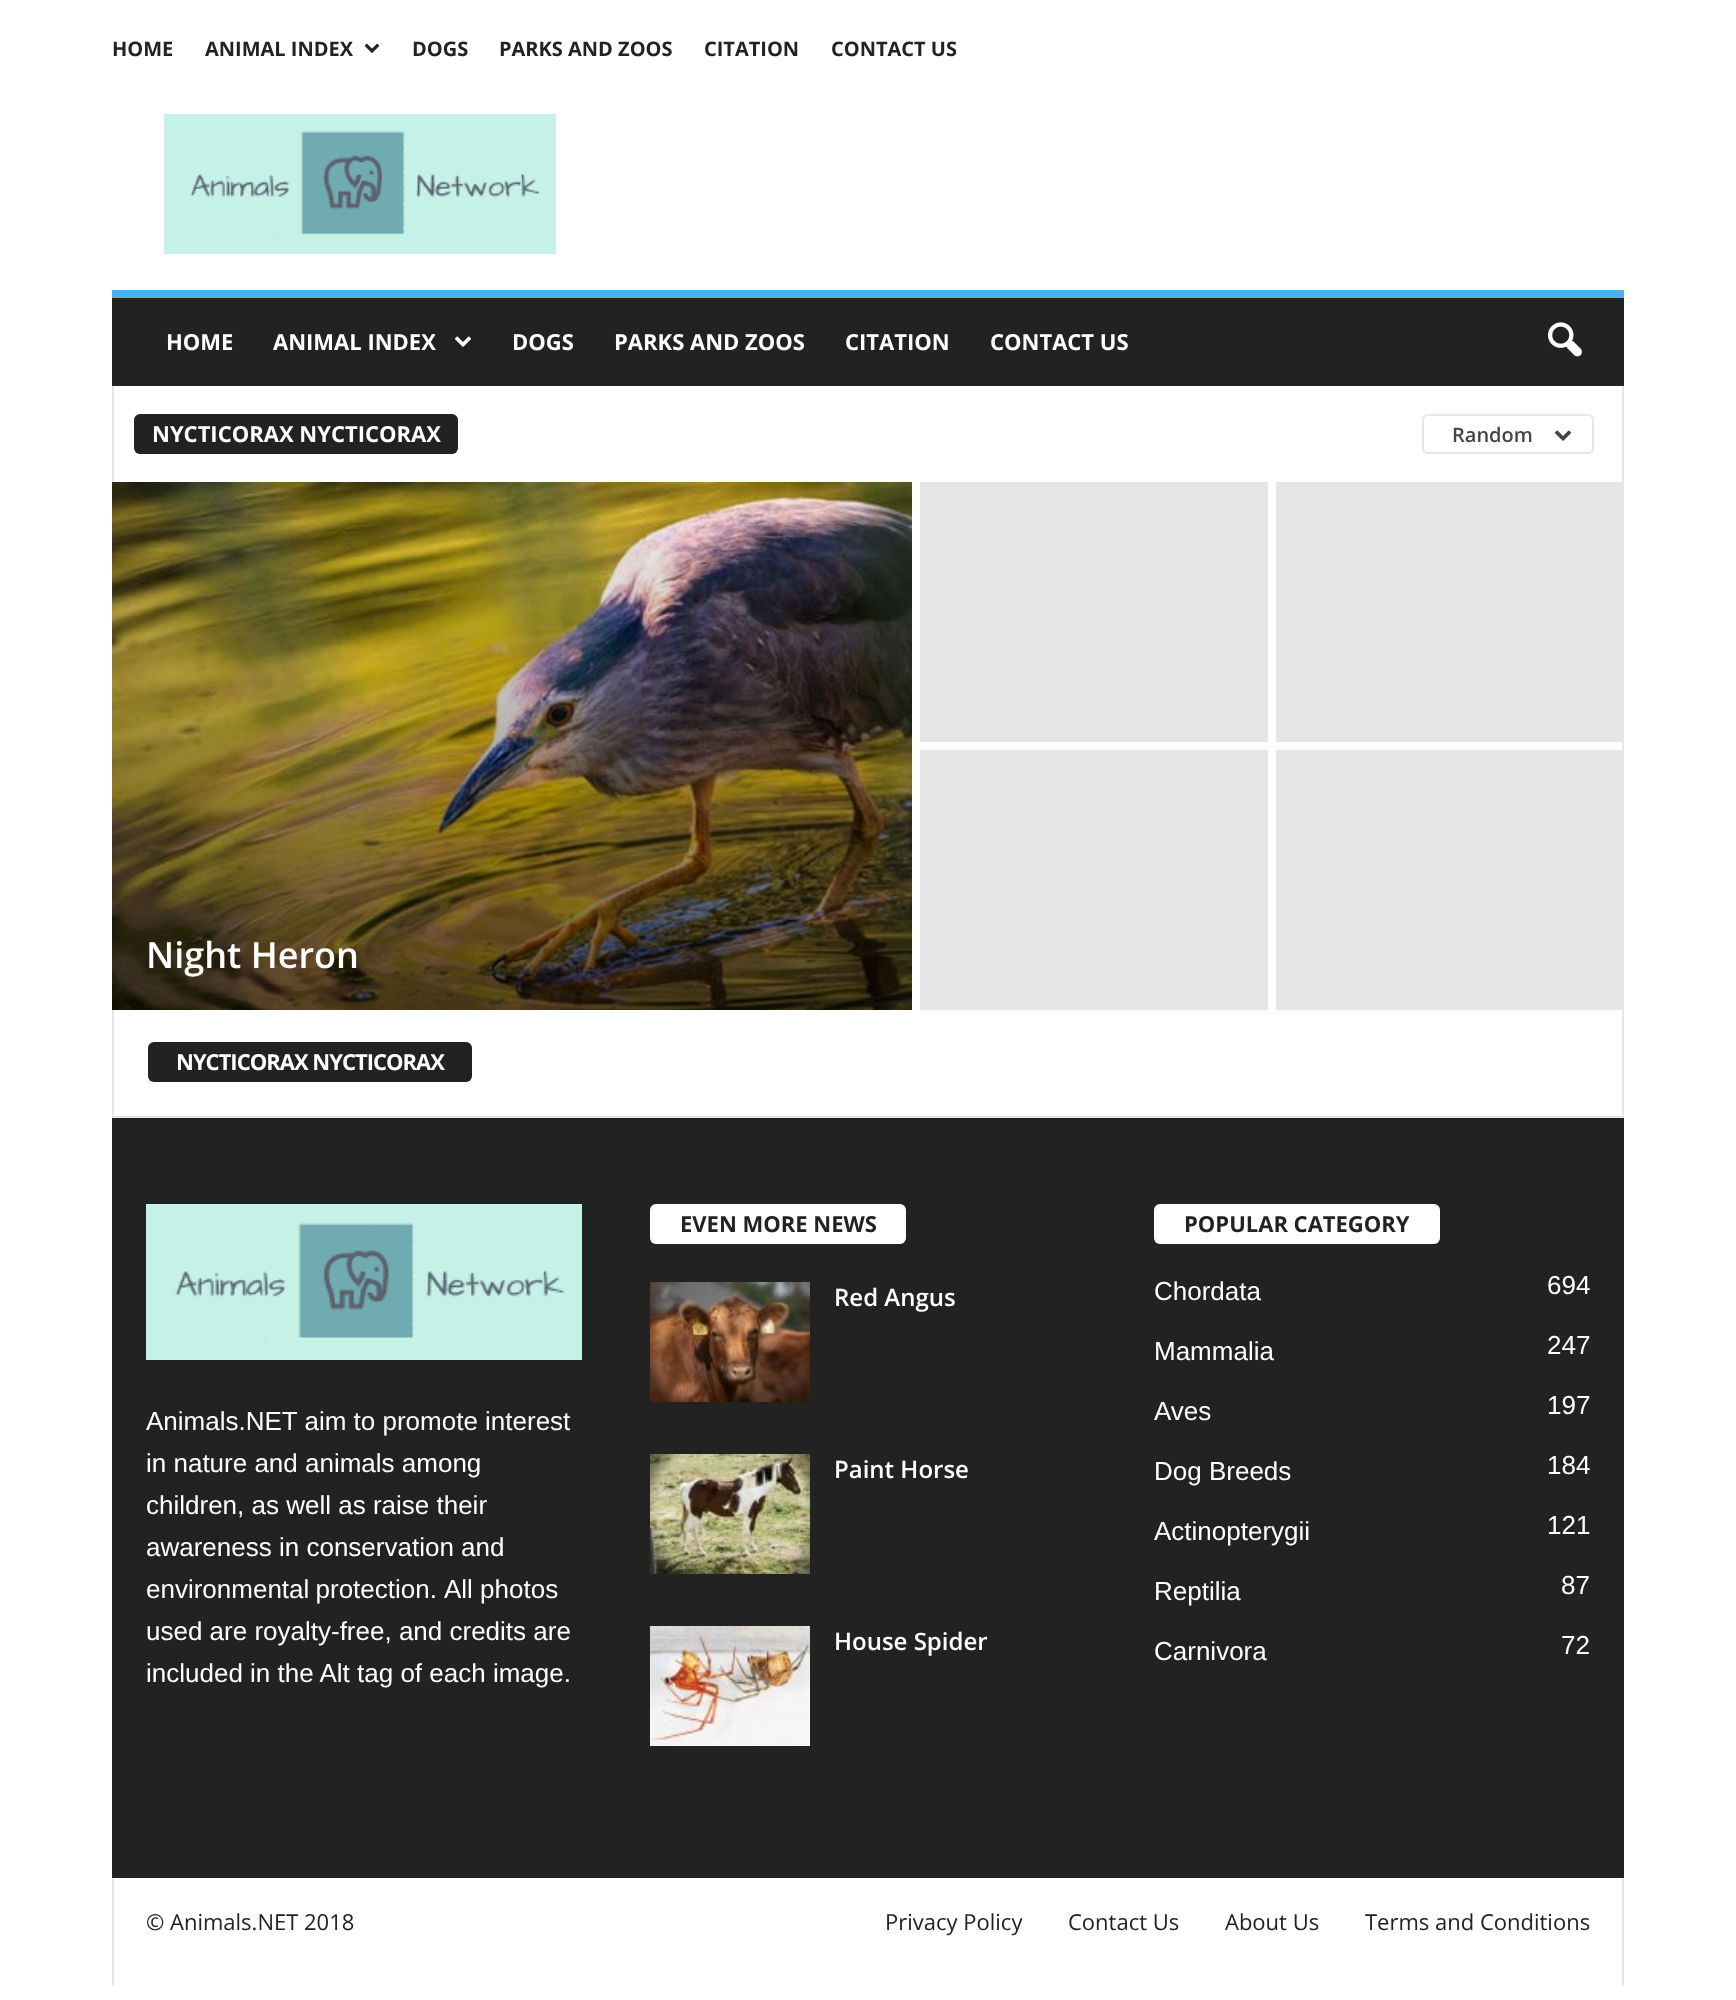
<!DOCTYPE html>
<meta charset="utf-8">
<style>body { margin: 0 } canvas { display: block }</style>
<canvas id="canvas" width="1736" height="2000"></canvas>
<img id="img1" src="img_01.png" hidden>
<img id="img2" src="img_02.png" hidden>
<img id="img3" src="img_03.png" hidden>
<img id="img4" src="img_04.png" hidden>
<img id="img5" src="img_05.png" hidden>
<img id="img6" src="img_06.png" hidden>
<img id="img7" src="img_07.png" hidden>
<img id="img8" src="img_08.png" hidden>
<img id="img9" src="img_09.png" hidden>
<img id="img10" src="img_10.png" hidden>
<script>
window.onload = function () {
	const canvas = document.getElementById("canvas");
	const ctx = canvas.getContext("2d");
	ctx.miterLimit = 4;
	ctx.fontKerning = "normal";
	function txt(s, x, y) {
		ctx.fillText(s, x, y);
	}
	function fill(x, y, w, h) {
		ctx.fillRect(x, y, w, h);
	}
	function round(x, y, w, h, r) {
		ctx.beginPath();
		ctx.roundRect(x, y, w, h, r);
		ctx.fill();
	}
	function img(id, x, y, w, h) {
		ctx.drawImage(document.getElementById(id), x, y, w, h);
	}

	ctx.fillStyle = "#FFFFFF";
	fill(0, 0, 1736, 2000);
	img("img1", 364, 43, 16, 10);
	img("img2", 164, 114, 392, 140);
	ctx.fillStyle = "#222222";
	fill(112, 298, 1512, 88);
	ctx.fillStyle = "#4DB2EC";
	fill(112, 290, 1512, 8);
	img("img3", 454, 336, 18, 11);
	img("img4", 1548, 322, 34, 35);
	ctx.fillStyle = "#E6E6E6";
	fill(112, 386, 2, 96);
	ctx.fillStyle = "#222222";
	round(134, 414, 324, 40, 6);
	ctx.beginPath();
	ctx.roundRect(1423, 415, 170, 38, 5);
	ctx.strokeStyle = "#E6E6E6";
	ctx.lineWidth = 2;
	ctx.stroke();
	img("img5", 1554, 430, 18, 11);
	ctx.fillStyle = "#E6E6E6";
	fill(1622, 386, 2, 96);
	fill(112, 1116, 1512, 2);
	ctx.fillStyle = "#E5E5E5";
	fill(920, 482, 348, 260);
	fill(1276, 482, 348, 260);
	img("img6", 112, 482, 800, 528);
	fill(920, 750, 348, 260);
	fill(1276, 750, 346, 260);
	ctx.fillStyle = "#E6E6E6";
	fill(1622, 742, 2, 374);
	fill(112, 1010, 2, 106);
	ctx.fillStyle = "#222222";
	round(148, 1042, 324, 40, 6);
	fill(112, 1118, 1512, 760);
	img("img7", 146, 1204, 436, 156);
	ctx.fillStyle = "#FFFFFF";
	round(650, 1204, 256, 40, 6);
	img("img8", 650, 1282, 160, 120);
	img("img9", 650, 1454, 160, 120);
	img("img10", 650, 1626, 160, 120);
	round(1154, 1204, 286, 40, 6);
	ctx.fillStyle = "#E6E6E6";
	fill(112, 1878, 2, 108);
	fill(1622, 1878, 2, 108);
	ctx.font = "bold 20px Open Sans";
	ctx.fillStyle = "#222222";
	txt("HOME", 112, 56);
	txt("ANIMAL INDEX", 205, 56);
	txt("DOGS", 412, 56);
	txt("PARKS AND ZOOS", 499, 56);
	txt("CITATION", 704, 56);
	txt("CONTACT US", 831, 56);
	ctx.font = "bold 22px Open Sans";
	ctx.fillStyle = "#FFFFFF";
	txt("HOME", 166, 350);
	txt("ANIMAL INDEX", 273, 350);
	txt("DOGS", 512, 350);
	txt("PARKS AND ZOOS", 614, 350);
	txt("CITATION", 845, 350);
	txt("CONTACT US", 990, 350);
	txt("NYCTICORAX NYCTICORAX", 152, 442);
	ctx.font = "600 20px Open Sans";
	ctx.fillStyle = "#444444";
	txt("Random", 1452, 442);
	ctx.font = "600 36px Open Sans";
	ctx.fillStyle = "#FFFFFF";
	txt("Night Heron", 146, 968);
	ctx.letterSpacing = "-1px";
	ctx.font = "bold 22px Open Sans";
	txt("NYCTICORAX NYCTICORAX", 176, 1070);
	ctx.letterSpacing = "0px";
	ctx.font = "26px Liberation Sans";
	txt("Animals.NET aim to promote interest", 146, 1430);
	txt("in nature and animals among", 146, 1472);
	txt("children, as well as raise their", 146, 1514);
	txt("awareness in conservation and", 146, 1556);
	ctx.wordSpacing = "-1px";
	txt("environmental protection.", 146, 1598);
	ctx.wordSpacing = "0px";
	txt("All photos", 444, 1598);
	txt("used are royalty-free, and credits are", 146, 1640);
	txt("included in the Alt tag of each image.", 146, 1682);
	ctx.font = "bold 22px Open Sans";
	ctx.fillStyle = "#222222";
	txt("EVEN MORE NEWS", 680, 1232);
	ctx.font = "600 24px Open Sans";
	ctx.fillStyle = "#FFFFFF";
	txt("Red Angus", 834, 1306);
	txt("Paint Horse", 834, 1478);
	txt("House Spider", 834, 1650);
	ctx.font = "bold 22px Open Sans";
	ctx.fillStyle = "#222222";
	txt("POPULAR CATEGORY", 1184, 1232);
	ctx.font = "26px Liberation Sans";
	ctx.fillStyle = "#FFFFFF";
	txt("Chordata", 1154, 1300);
	txt("694", 1547, 1294);
	txt("Mammalia", 1154, 1360);
	txt("247", 1547, 1354);
	txt("Aves", 1154, 1420);
	txt("197", 1547, 1414);
	txt("Dog Breeds", 1154, 1480);
	txt("184", 1547, 1474);
	txt("Actinopterygii", 1154, 1540);
	txt("121", 1547, 1534);
	txt("Reptilia", 1154, 1600);
	txt("87", 1561, 1594);
	txt("Carnivora", 1154, 1660);
	txt("72", 1561, 1654);
	ctx.font = "22px Open Sans";
	ctx.fillStyle = "#222222";
	txt("© Animals.NET 2018", 146, 1930);
	txt("Privacy Policy", 885, 1930);
	txt("Contact Us", 1068, 1930);
	txt("About Us", 1225, 1930);
	txt("Terms and Conditions", 1365, 1930);
};
</script>
